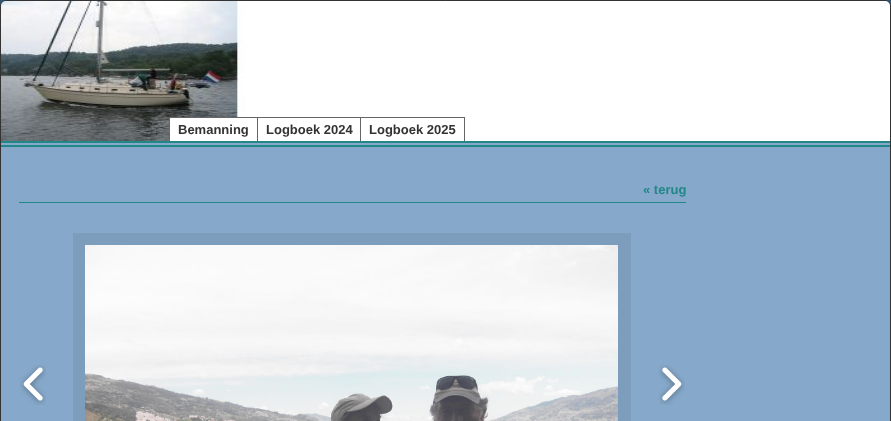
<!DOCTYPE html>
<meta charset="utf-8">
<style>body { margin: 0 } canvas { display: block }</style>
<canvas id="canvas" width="891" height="421"></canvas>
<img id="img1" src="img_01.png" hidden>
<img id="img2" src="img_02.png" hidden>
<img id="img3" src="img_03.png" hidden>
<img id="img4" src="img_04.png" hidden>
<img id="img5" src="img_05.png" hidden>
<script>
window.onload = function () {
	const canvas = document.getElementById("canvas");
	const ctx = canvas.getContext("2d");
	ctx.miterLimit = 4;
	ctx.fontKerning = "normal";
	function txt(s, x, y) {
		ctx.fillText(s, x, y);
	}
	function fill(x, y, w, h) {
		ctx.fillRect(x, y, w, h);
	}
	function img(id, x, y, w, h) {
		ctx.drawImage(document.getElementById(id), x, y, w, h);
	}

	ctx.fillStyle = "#325676";
	fill(0, 0, 891, 421);
	ctx.fillStyle = "#86A8CA";
	ctx.beginPath();
	ctx.roundRect(0.5, 0.5, 890, 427, 5.5);
	ctx.fill();
	ctx.strokeStyle = "#333333";
	ctx.stroke();
	img("img1", 1, 1, 889, 140);
	img("img2", 1, 141, 889, 6);
	ctx.fillStyle = "#666666";
	fill(169, 117, 1, 24);
	ctx.fillStyle = "#FFFFFF";
	fill(170, 118, 75, 23);
	ctx.fillStyle = "#666666";
	fill(170, 117, 295, 1);
	fill(257, 117, 1, 24);
	fill(360, 117, 1, 24);
	fill(464, 117, 1, 24);
	ctx.fillStyle = "#218787";
	fill(19, 202, 667, 1);
	img("img3", 20, 365, 26, 40);
	ctx.fillStyle = "#7D9DBD";
	fill(73, 233, 558, 188);
	img("img4", 85, 245, 533, 176);
	img("img5", 659, 365, 26, 40);
	ctx.font = "bold 13px Liberation Sans";
	ctx.fillStyle = "#333333";
	txt("Bemanning", 178, 134);
	txt("Logboek 2024", 266, 134);
	txt("Logboek 2025", 369, 134);
	ctx.fillStyle = "#218787";
	txt("« terug", 643, 194);
};
</script>
